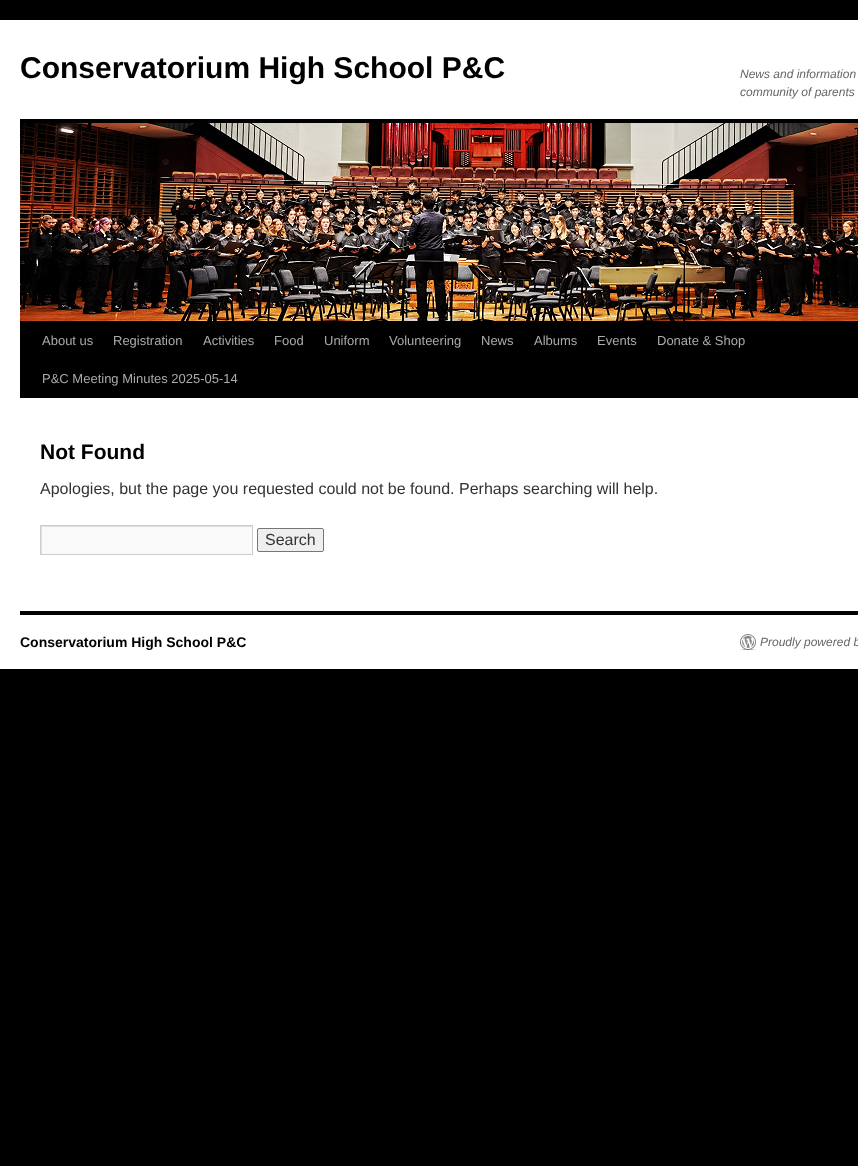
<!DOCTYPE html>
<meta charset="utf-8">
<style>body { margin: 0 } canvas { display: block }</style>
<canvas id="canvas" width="858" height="1166"></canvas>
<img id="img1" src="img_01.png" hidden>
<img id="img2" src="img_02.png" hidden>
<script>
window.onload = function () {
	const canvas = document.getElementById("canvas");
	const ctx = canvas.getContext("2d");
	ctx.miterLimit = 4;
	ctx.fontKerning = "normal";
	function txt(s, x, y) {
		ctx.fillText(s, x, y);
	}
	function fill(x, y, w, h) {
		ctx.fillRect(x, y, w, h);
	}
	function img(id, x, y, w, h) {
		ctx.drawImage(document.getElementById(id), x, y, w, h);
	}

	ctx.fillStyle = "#000000";
	fill(0, 0, 858, 1166);
	ctx.fillStyle = "#FFFFFF";
	fill(0, 20, 858, 649);
	ctx.fillStyle = "#000000";
	fill(20, 119, 838, 4);
	fill(20, 321, 838, 77);
	img("img1", 20, 123, 838, 198);
	ctx.fillStyle = "#F9F9F9";
	fill(42, 527, 210, 27);
	ctx.save();
	ctx.beginPath();
	ctx.rect(41, 526, 211, 28);
	ctx.clip();
	ctx.fillStyle = "#E0E0E0";
	ctx.beginPath();
	ctx.moveTo(-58, 427);
	ctx.lineTo(351, 427);
	ctx.lineTo(351, 653);
	ctx.lineTo(-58, 653);
	ctx.closePath();
	ctx.moveTo(42, 527);
	ctx.lineTo(253, 527);
	ctx.lineTo(253, 555);
	ctx.lineTo(42, 555);
	ctx.closePath();
	ctx.fill("evenodd");
	ctx.restore();
	ctx.strokeStyle = "#CCCCCC";
	ctx.strokeRect(40.5, 525.5, 212, 29);
	ctx.fillStyle = "#EFEFEF";
	ctx.beginPath();
	ctx.roundRect(257.5, 528.5, 66, 23, 1.5);
	ctx.fill();
	ctx.strokeStyle = "#767676";
	ctx.stroke();
	ctx.fillStyle = "#000000";
	fill(20, 611, 838, 4);
	img("img2", 740, 634, 16, 16);
	ctx.font = "bold 30px Liberation Sans";
	txt("Conservatorium High School P&C", 20, 78);
	ctx.font = "italic 12px Liberation Sans";
	ctx.fillStyle = "#666666";
	txt("News and information", 740, 78);
	txt("community of parents", 740, 96);
	ctx.font = "13px Liberation Sans";
	ctx.fillStyle = "#AAAAAA";
	txt("About us", 42, 345);
	txt("Registration", 113, 345);
	txt("Activities", 203, 345);
	txt("Food", 274, 345);
	txt("Uniform", 324, 345);
	txt("Volunteering", 389, 345);
	txt("News", 481, 345);
	txt("Albums", 534, 345);
	txt("Events", 597, 345);
	txt("Donate & Shop", 657, 345);
	txt("P&C Meeting Minutes 2025-05-14", 42, 383);
	ctx.font = "bold 21px Liberation Sans";
	ctx.fillStyle = "#000000";
	txt("Not Found", 40, 459);
	ctx.font = "16px Liberation Sans";
	ctx.fillStyle = "#333333";
	txt("Apologies, but the page you requested could not be found. Perhaps searching will help.", 40, 494);
	txt("Search", 265, 545);
	ctx.font = "bold 14px Liberation Sans";
	ctx.fillStyle = "#000000";
	txt("Conservatorium High School P&C", 20, 647);
	ctx.font = "italic 12px Liberation Sans";
	ctx.fillStyle = "#666666";
	txt("Proudly powered b", 760, 646);
};
</script>
